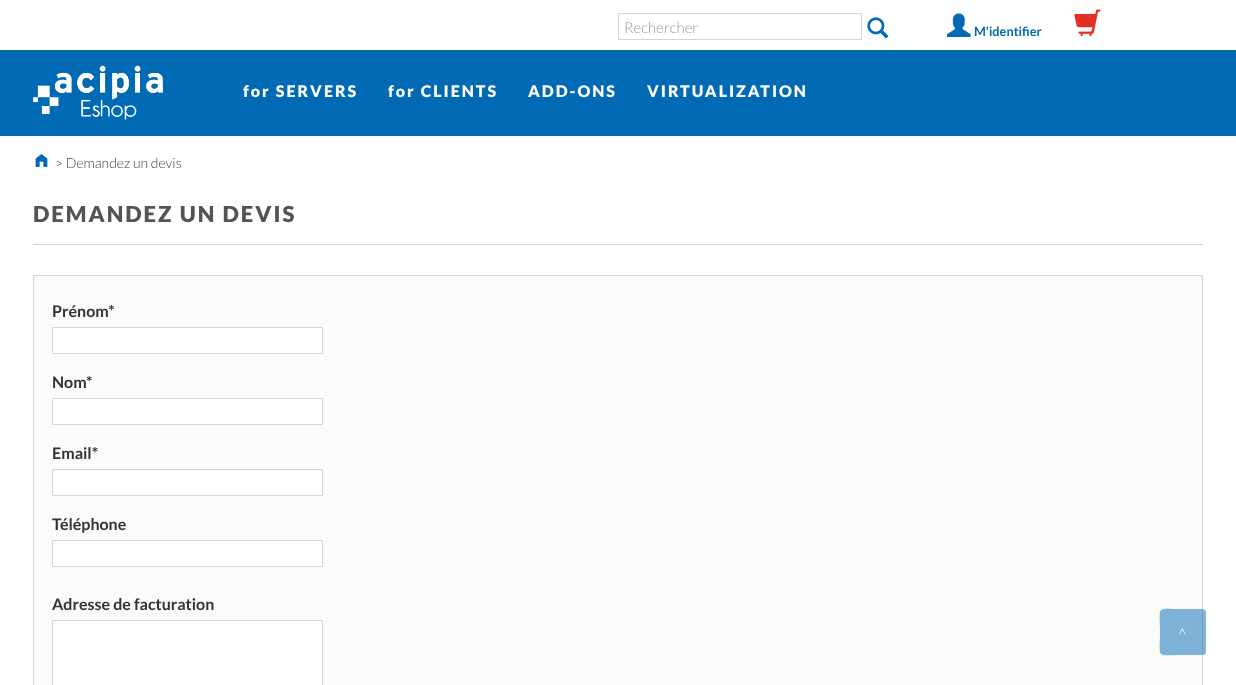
<!DOCTYPE html>
<meta charset="utf-8">
<style>body { margin: 0 } canvas { display: block }</style>
<canvas id="canvas" width="1236" height="685"></canvas>
<img id="img1" src="img_01.png" hidden>
<img id="img2" src="img_02.png" hidden>
<img id="img3" src="img_03.png" hidden>
<img id="img4" src="img_04.png" hidden>
<img id="img5" src="img_05.png" hidden>
<script>
window.onload = function () {
	const canvas = document.getElementById("canvas");
	const ctx = canvas.getContext("2d");
	ctx.miterLimit = 4;
	ctx.fontKerning = "normal";
	function txt(s, x, y) {
		ctx.fillText(s, x, y);
	}
	function fill(x, y, w, h) {
		ctx.fillRect(x, y, w, h);
	}
	function img(id, x, y, w, h) {
		ctx.drawImage(document.getElementById(id), x, y, w, h);
	}

	ctx.fillStyle = "#FFFFFF";
	fill(0, 0, 1236, 685);
	ctx.strokeStyle = "#D6D4D4";
	ctx.strokeRect(618.5, 13.5, 243, 26);
	img("img1", 867, 17, 22, 22);
	img("img2", 947, 13, 24, 24);
	img("img3", 1074, 9, 27, 27);
	ctx.fillStyle = "#016AB4";
	fill(0, 50, 1236, 86);
	img("img4", 33, 65, 130, 55);
	img("img5", 35, 154, 13, 13);
	ctx.fillStyle = "#D6D4D4";
	fill(33, 244, 1170, 1);
	ctx.fillStyle = "#FBFBFB";
	ctx.beginPath();
	ctx.rect(33.5, 275.5, 1169, 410);
	ctx.fill();
	ctx.stroke();
	ctx.fillStyle = "#FFFFFF";
	ctx.beginPath();
	ctx.rect(52.5, 327.5, 270, 26);
	ctx.fill();
	ctx.stroke();
	ctx.beginPath();
	ctx.rect(52.5, 398.5, 270, 26);
	ctx.fill();
	ctx.stroke();
	ctx.beginPath();
	ctx.rect(52.5, 469.5, 270, 26);
	ctx.fill();
	ctx.stroke();
	ctx.beginPath();
	ctx.rect(52.5, 540.5, 270, 26);
	ctx.fill();
	ctx.stroke();
	ctx.beginPath();
	ctx.rect(52.5, 620.5, 270, 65);
	ctx.fill();
	ctx.stroke();
	ctx.fillStyle = "rgba(1, 106, 180, 0.5)";
	ctx.beginPath();
	ctx.moveTo(1206, 612);
	ctx.lineTo(1206, 645);
	ctx.bezierCurveTo(1206, 656, 1207, 655, 1197, 655);
	ctx.lineTo(1183, 655);
	ctx.bezierCurveTo(1155, 655, 1160, 660, 1160, 632);
	ctx.bezierCurveTo(1160, 604, 1155, 609, 1183, 609);
	ctx.lineTo(1197, 609);
	ctx.bezierCurveTo(1199, 609, 1206, 608, 1206, 612);
	ctx.closePath();
	ctx.fill();
	ctx.font = "300 15px Lato";
	ctx.fillStyle = "#999999";
	txt("Rechercher", 624, 33);
	ctx.font = "bold 12.75px Lato";
	ctx.fillStyle = "#016AB4";
	txt("M'identifier", 974, 36);
	ctx.letterSpacing = "2px";
	ctx.font = "900 16px Lato";
	ctx.fillStyle = "#FDFDFD";
	txt("for SERVERS", 243, 97);
	txt("for CLIENTS", 388, 97);
	txt("ADD-ONS", 528, 97);
	txt("VIRTUALIZATION", 647, 97);
	ctx.letterSpacing = "0px";
	ctx.font = "300 14px Lato";
	ctx.fillStyle = "#444444";
	txt("> Demandez un devis", 55, 168);
	ctx.letterSpacing = "2px";
	ctx.font = "900 22px Lato";
	ctx.fillStyle = "#555454";
	txt("DEMANDEZ UN DEVIS", 33, 222);
	ctx.letterSpacing = "0px";
	ctx.font = "bold 16px Lato";
	ctx.fillStyle = "#333333";
	txt("Prénom*", 52, 317);
	txt("Nom*", 52, 388);
	txt("Email*", 52, 459);
	txt("Téléphone", 52, 530);
	txt("Adresse de facturation", 52, 610);
	ctx.font = "300 16px Lato";
	ctx.fillStyle = "#FDFDFD";
	ctx.save();
	ctx.translate(1177, 627);
	ctx.rotate(90 * Math.PI / 180);
	ctx.fillText("<", 0, 0);
	ctx.restore();
};
</script>
